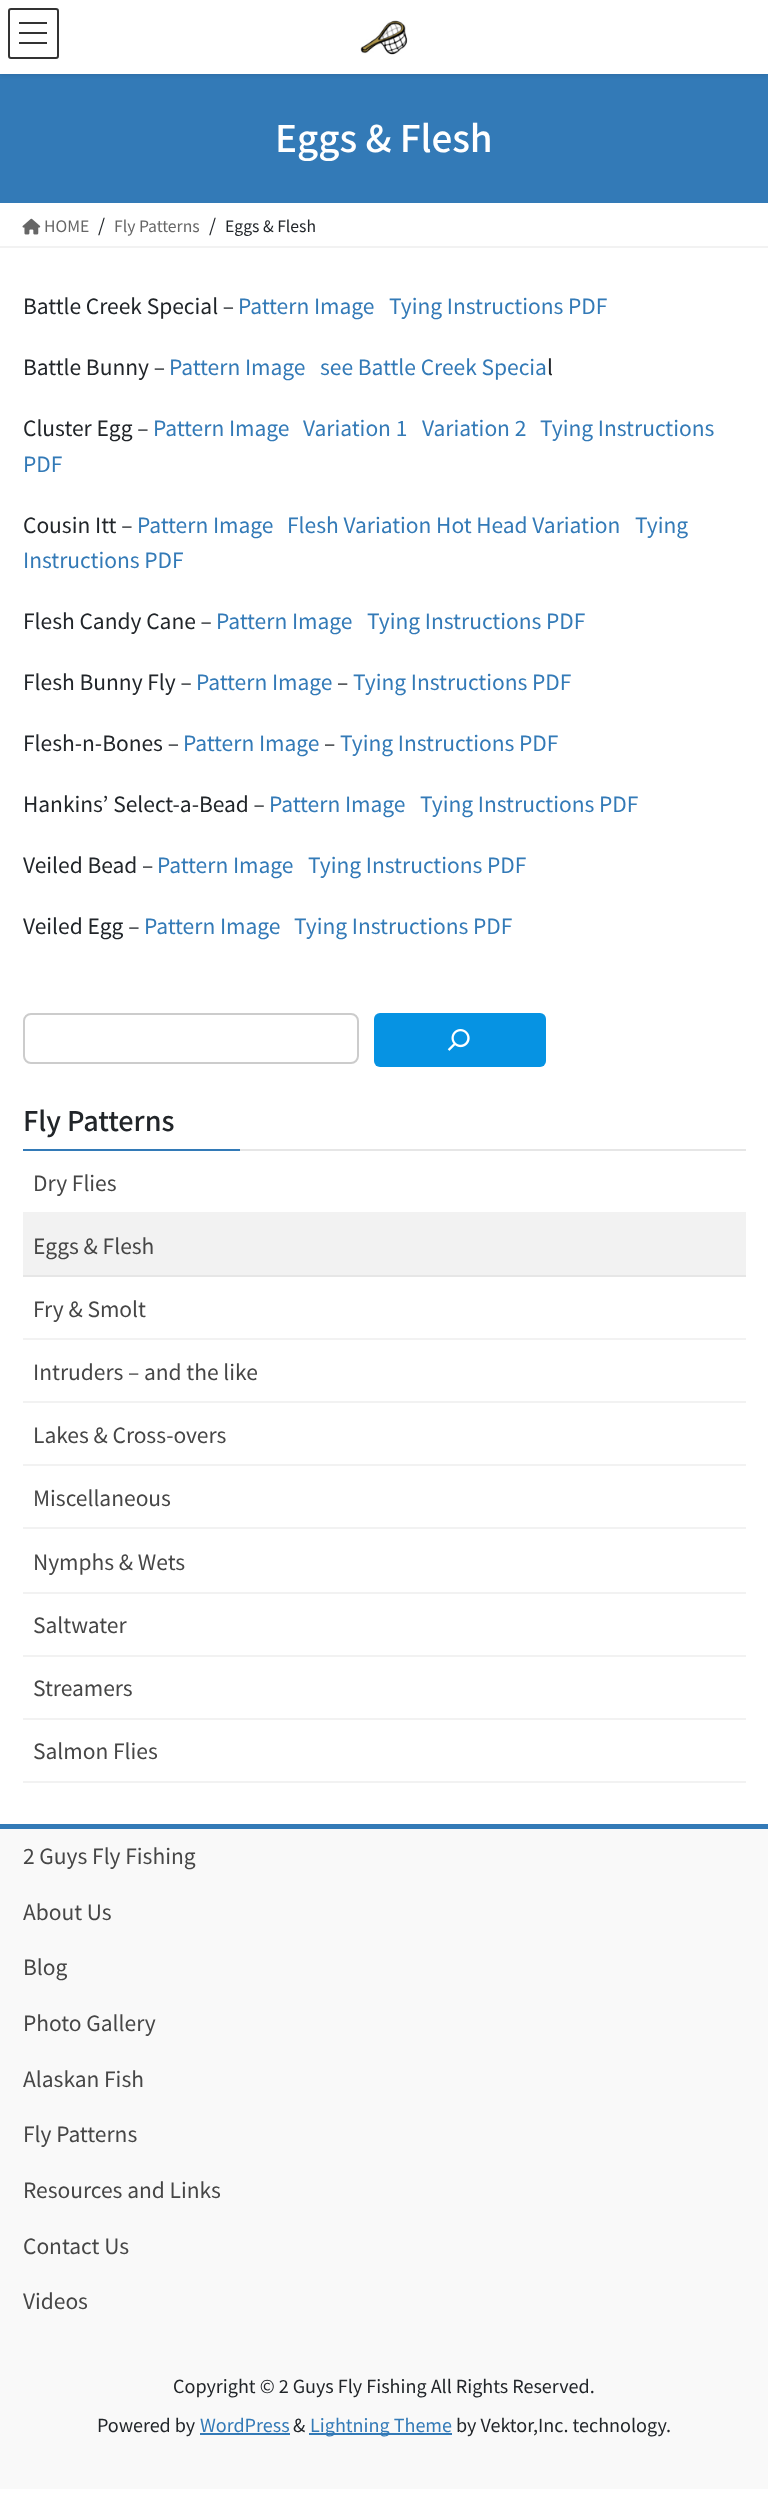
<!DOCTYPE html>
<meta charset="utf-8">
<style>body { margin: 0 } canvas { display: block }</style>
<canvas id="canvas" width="768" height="2494"></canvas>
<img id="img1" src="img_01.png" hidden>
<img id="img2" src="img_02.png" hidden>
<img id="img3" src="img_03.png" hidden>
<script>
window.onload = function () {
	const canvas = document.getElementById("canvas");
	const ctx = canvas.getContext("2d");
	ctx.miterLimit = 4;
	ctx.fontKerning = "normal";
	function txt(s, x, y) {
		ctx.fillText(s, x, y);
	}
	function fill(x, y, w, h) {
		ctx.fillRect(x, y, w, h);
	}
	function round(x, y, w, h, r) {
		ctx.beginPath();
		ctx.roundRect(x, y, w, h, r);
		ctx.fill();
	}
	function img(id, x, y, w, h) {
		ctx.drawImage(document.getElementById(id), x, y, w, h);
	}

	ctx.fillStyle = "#FFFFFF";
	fill(0, 0, 768, 2494);
	ctx.fillStyle = "#337AB7";
	fill(0, 74, 768, 129);
	ctx.fillStyle = "rgba(0, 0, 0, 0.1)";
	ctx.filter = "blur(2px)";
	ctx.beginPath();
	ctx.rect(0, 2, 768, 73);
	ctx.fill();
	ctx.filter = "none";
	ctx.fillStyle = "#FFFFFF";
	fill(0, 0, 768, 74);
	img("img1", 360, 20, 48, 35);
	ctx.fillStyle = "#333333";
	fill(19, 22, 28, 2);
	fill(19, 32, 28, 2);
	fill(19, 42, 28, 2);
	ctx.beginPath();
	ctx.roundRect(9, 9, 49, 49, 2);
	ctx.strokeStyle = "#333333";
	ctx.lineWidth = 2;
	ctx.stroke();
	ctx.fillStyle = "#F2F2F2";
	fill(0, 246, 768, 2);
	img("img2", 22, 218, 19, 17);
	ctx.beginPath();
	ctx.roundRect(24, 1014, 334, 49, 7);
	ctx.strokeStyle = "#CCCCCC";
	ctx.stroke();
	ctx.fillStyle = "#0693E3";
	round(374, 1013, 172, 54, 6);
	img("img3", 447, 1029, 23, 22);
	ctx.fillStyle = "#E6E6E6";
	fill(240, 1149, 506, 2);
	ctx.fillStyle = "#337AB7";
	fill(23, 1149, 217, 2);
	ctx.fillStyle = "#F2F2F2";
	fill(23, 1212, 723, 63);
	ctx.fillStyle = "#E6E6E6";
	fill(23, 1275, 723, 2);
	ctx.fillStyle = "#F2F2F2";
	fill(23, 1338, 723, 2);
	fill(23, 1401, 723, 2);
	fill(23, 1464, 723, 2);
	fill(23, 1527, 723, 2);
	fill(23, 1592, 723, 2);
	fill(23, 1655, 723, 2);
	fill(23, 1718, 723, 2);
	fill(23, 1781, 723, 2);
	ctx.fillStyle = "#F9F9F9";
	fill(0, 1829, 768, 660);
	ctx.fillStyle = "#337AB7";
	fill(0, 1824, 768, 5);
	fill(200, 2433, 90, 2);
	fill(309, 2433, 143, 2);
	ctx.font = "500 36.75px Noto Sans JP";
	ctx.fillStyle = "#FFFFFF";
	txt("Eggs & Flesh", 275, 152);
	ctx.font = "15.75px Noto Sans JP";
	ctx.fillStyle = "#666666";
	txt("HOME", 44, 232);
	ctx.font = "18px Noto Sans JP";
	ctx.fillStyle = "#212529";
	txt("/", 98, 232);
	ctx.font = "15.75px Noto Sans JP";
	ctx.fillStyle = "#666666";
	txt("Fly Patterns", 114, 232);
	ctx.font = "18px Noto Sans JP";
	ctx.fillStyle = "#212529";
	txt("/", 209, 232);
	ctx.font = "15.75px Noto Sans JP";
	txt("Eggs & Flesh", 225, 232);
	ctx.font = "21px Noto Sans JP";
	txt("Battle Creek Special –", 23, 314);
	ctx.fillStyle = "#337AB7";
	txt("Pattern Image", 238, 314);
	txt("Tying Instructions PDF", 389, 314);
	ctx.fillStyle = "#212529";
	txt("Battle Bunny –", 23, 375);
	ctx.fillStyle = "#337AB7";
	txt("Pattern Image", 169, 375);
	txt("see Battle Creek Specia", 320, 375);
	ctx.fillStyle = "#212529";
	txt("l", 547, 375);
	txt("Cluster Egg –", 23, 436);
	ctx.fillStyle = "#337AB7";
	txt("Pattern Image", 153, 436);
	txt("Variation 1", 303, 436);
	txt("Variation 2", 422, 436);
	txt("Tying Instructions", 540, 436);
	txt("PDF", 23, 472);
	ctx.fillStyle = "#212529";
	txt("Cousin Itt –", 23, 533);
	ctx.fillStyle = "#337AB7";
	txt("Pattern Image", 137, 533);
	txt("Flesh Variation Hot Head Variation", 287, 533);
	txt("Tying", 635, 533);
	txt("Instructions PDF", 23, 568);
	ctx.fillStyle = "#212529";
	txt("Flesh Candy Cane –", 23, 629);
	ctx.fillStyle = "#337AB7";
	txt("Pattern Image", 216, 629);
	txt("Tying Instructions PDF", 367, 629);
	ctx.fillStyle = "#212529";
	txt("Flesh Bunny Fly –", 23, 690);
	ctx.fillStyle = "#337AB7";
	txt("Pattern Image", 196, 690);
	ctx.fillStyle = "#212529";
	txt("–", 337, 690);
	ctx.fillStyle = "#337AB7";
	txt("Tying Instructions PDF", 353, 690);
	ctx.fillStyle = "#212529";
	txt("Flesh-n-Bones –", 23, 751);
	ctx.fillStyle = "#337AB7";
	txt("Pattern Image", 183, 751);
	ctx.fillStyle = "#212529";
	txt("–", 324, 751);
	ctx.fillStyle = "#337AB7";
	txt("Tying Instructions PDF", 340, 751);
	ctx.fillStyle = "#212529";
	txt("Hankins’ Select-a-Bead –", 23, 812);
	ctx.fillStyle = "#337AB7";
	txt("Pattern Image", 269, 812);
	txt("Tying Instructions PDF", 420, 812);
	ctx.fillStyle = "#212529";
	txt("Veiled Bead –", 23, 873);
	ctx.fillStyle = "#337AB7";
	txt("Pattern Image", 157, 873);
	txt("Tying Instructions PDF", 308, 873);
	ctx.fillStyle = "#212529";
	txt("Veiled Egg –", 23, 934);
	ctx.fillStyle = "#337AB7";
	txt("Pattern Image", 144, 934);
	txt("Tying Instructions PDF", 294, 934);
	ctx.font = "500 27px Noto Sans JP";
	ctx.fillStyle = "#212529";
	txt("Fly Patterns", 23, 1131);
	ctx.font = "21px Noto Sans JP";
	ctx.fillStyle = "#464646";
	txt("Dry Flies", 33, 1191);
	txt("Eggs & Flesh", 33, 1254);
	txt("Fry & Smolt", 33, 1317);
	txt("Intruders – and the like", 33, 1380);
	txt("Lakes & Cross-overs", 33, 1443);
	txt("Miscellaneous", 33, 1506);
	txt("Nymphs & Wets", 33, 1570);
	txt("Saltwater", 33, 1633);
	txt("Streamers", 33, 1696);
	txt("Salmon Flies", 33, 1759);
	txt("2 Guys Fly Fishing", 23, 1864);
	txt("About Us", 23, 1920);
	txt("Blog", 23, 1975);
	txt("Photo Gallery", 23, 2031);
	txt("Alaskan Fish", 23, 2087);
	txt("Fly Patterns", 23, 2142);
	txt("Resources and Links", 23, 2198);
	txt("Contact Us", 23, 2254);
	txt("Videos", 23, 2309);
	ctx.font = "18px Noto Sans JP";
	ctx.fillStyle = "#212529";
	txt("Copyright © 2 Guys Fly Fishing All Rights Reserved.", 173, 2393);
	txt("Powered by", 97, 2432);
	ctx.fillStyle = "#337AB7";
	txt("WordPress", 200, 2432);
	ctx.fillStyle = "#212529";
	txt("&", 293, 2432);
	ctx.fillStyle = "#337AB7";
	txt("Lightning Theme", 310, 2432);
	ctx.fillStyle = "#212529";
	txt("by Vektor,Inc. technology.", 456, 2432);
};
</script>
